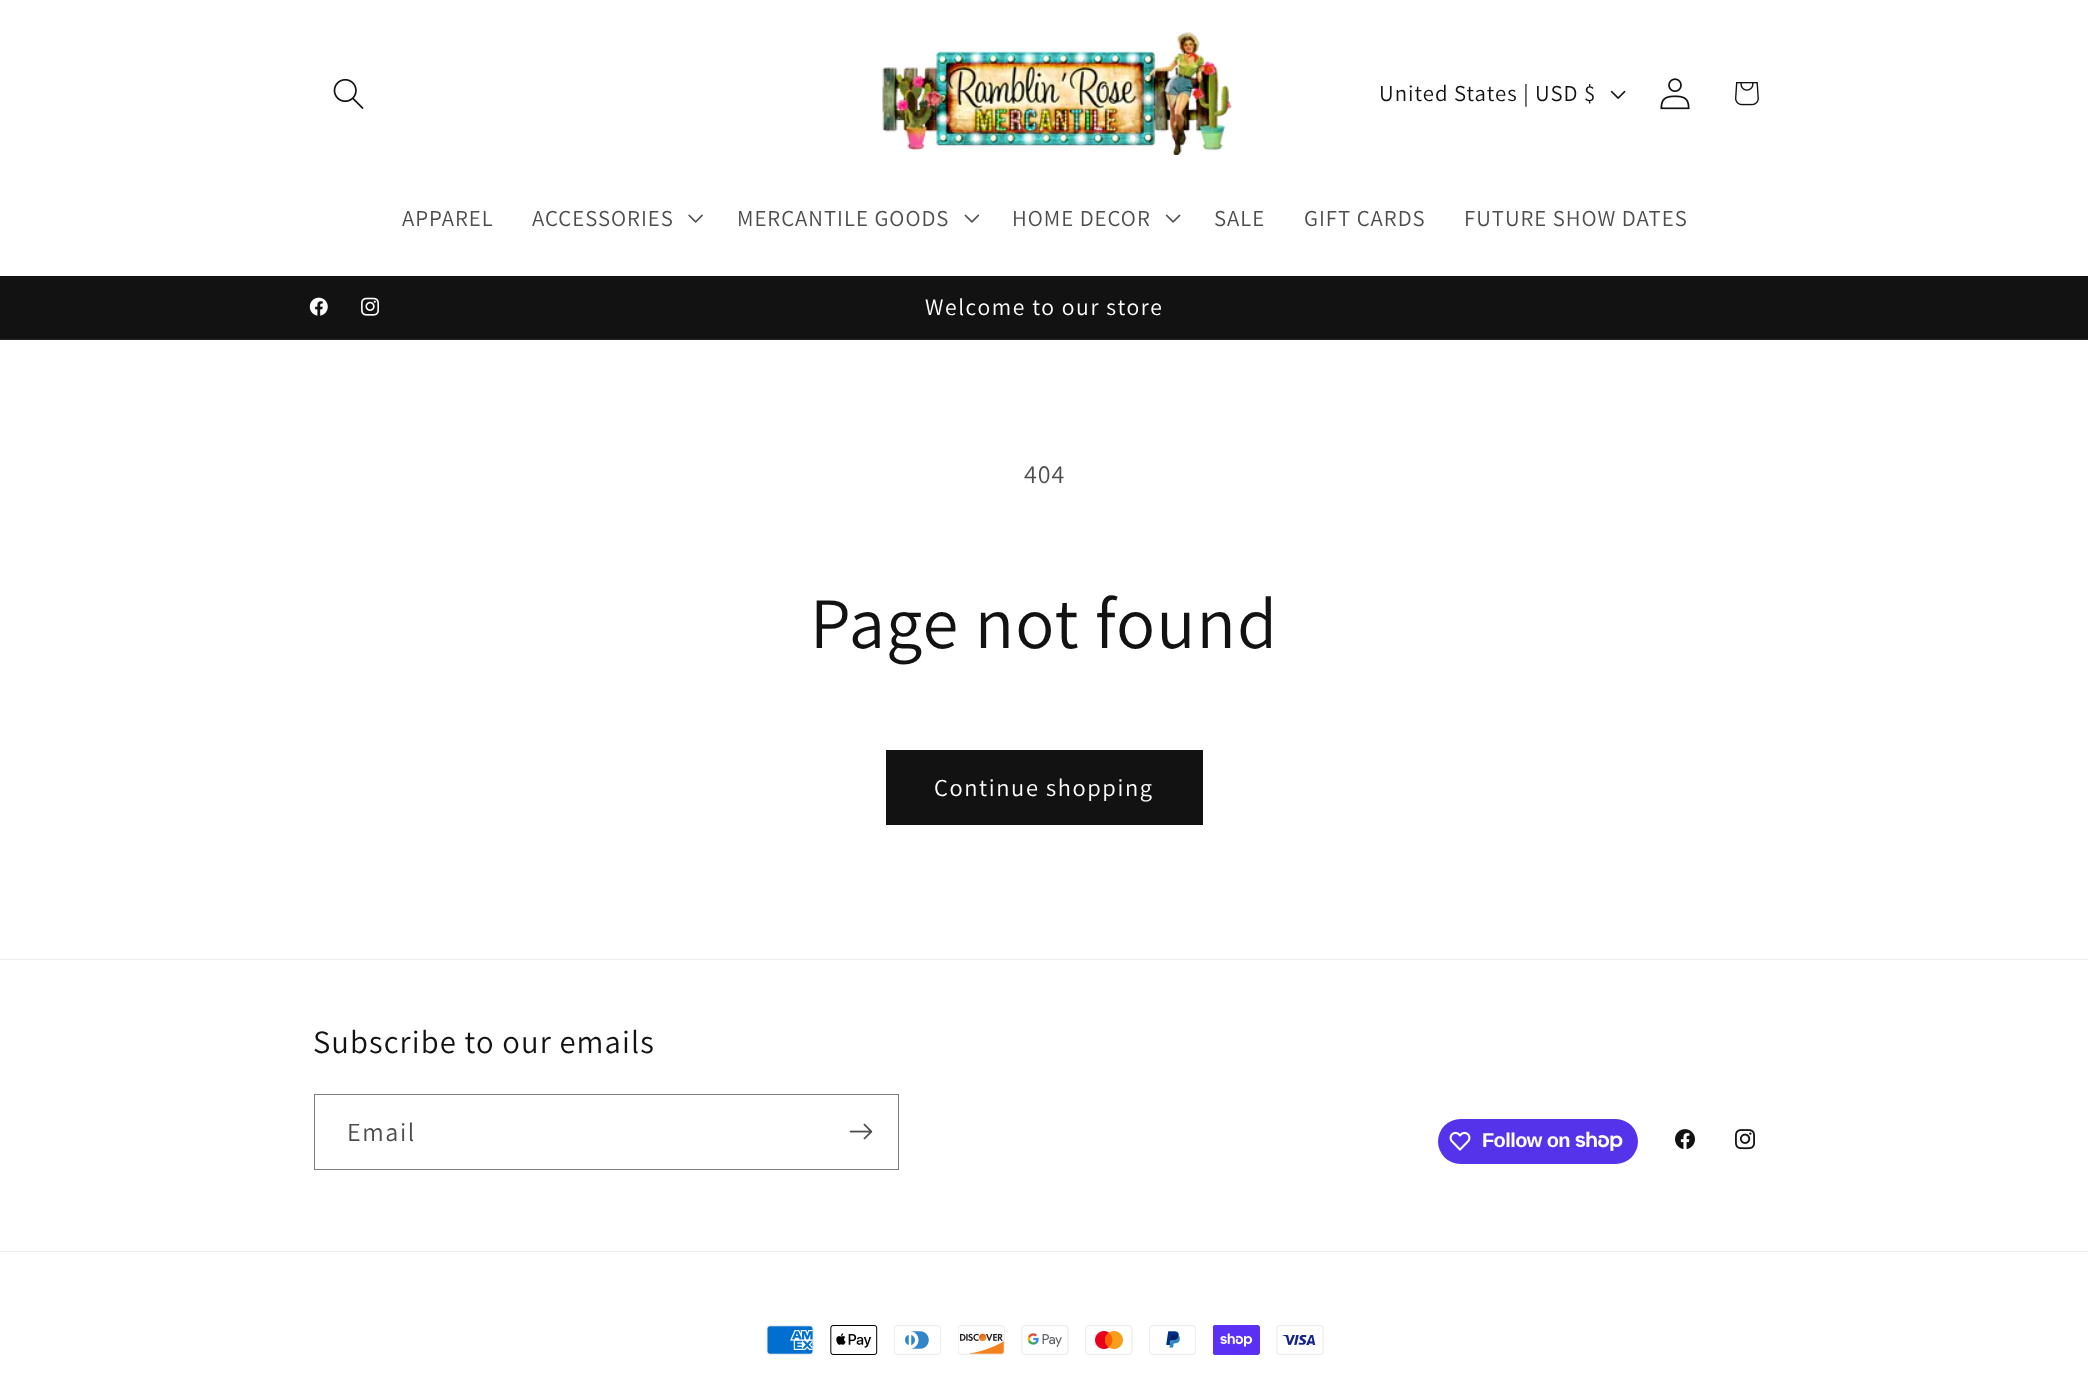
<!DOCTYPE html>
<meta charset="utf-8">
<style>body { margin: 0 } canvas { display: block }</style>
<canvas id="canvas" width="2088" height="1390"></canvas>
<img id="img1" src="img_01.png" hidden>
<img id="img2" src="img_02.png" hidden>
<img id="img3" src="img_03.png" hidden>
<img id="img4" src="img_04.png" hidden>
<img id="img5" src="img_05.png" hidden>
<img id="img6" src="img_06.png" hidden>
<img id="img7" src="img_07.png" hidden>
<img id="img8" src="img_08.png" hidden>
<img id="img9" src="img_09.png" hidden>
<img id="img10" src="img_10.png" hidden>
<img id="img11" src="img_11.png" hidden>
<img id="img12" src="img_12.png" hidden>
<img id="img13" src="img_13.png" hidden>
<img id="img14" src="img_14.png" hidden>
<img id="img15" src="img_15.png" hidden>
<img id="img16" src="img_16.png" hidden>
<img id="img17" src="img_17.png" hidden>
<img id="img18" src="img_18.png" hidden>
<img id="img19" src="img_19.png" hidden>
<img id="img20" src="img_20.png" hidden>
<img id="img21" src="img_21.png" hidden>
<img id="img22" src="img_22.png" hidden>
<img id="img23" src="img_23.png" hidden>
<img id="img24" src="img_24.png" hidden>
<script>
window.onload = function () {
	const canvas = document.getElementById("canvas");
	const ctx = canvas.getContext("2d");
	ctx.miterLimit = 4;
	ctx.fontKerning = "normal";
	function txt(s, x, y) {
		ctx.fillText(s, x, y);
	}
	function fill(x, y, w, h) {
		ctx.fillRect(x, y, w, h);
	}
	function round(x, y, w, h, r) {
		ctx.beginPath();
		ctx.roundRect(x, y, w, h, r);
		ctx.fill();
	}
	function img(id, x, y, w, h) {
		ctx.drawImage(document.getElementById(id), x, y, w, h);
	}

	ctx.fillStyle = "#FFFFFF";
	fill(0, 0, 2088, 1390);
	img("img1", 333, 78, 31, 31);
	img("img2", 882, 32, 350, 123);
	img("img3", 1610, 90, 16, 9);
	img("img4", 1660, 78, 30, 32);
	img("img5", 1735, 82, 24, 24);
	img("img6", 688, 214, 15, 9);
	img("img7", 964, 214, 16, 9);
	img("img8", 1165, 214, 16, 9);
	ctx.fillStyle = "#121212";
	fill(0, 276, 2088, 63);
	ctx.fillStyle = "#252525";
	fill(0, 339, 2088, 1);
	img("img9", 309, 297, 19, 19);
	img("img10", 361, 297, 18, 19);
	ctx.fillStyle = "#121212";
	fill(886, 750, 317, 75);
	ctx.fillStyle = "#ECECEC";
	fill(0, 959, 2088, 1);
	ctx.strokeStyle = "#7D7D7D";
	ctx.strokeRect(314.5, 1094.5, 584, 75);
	img("img11", 849, 1123, 24, 17);
	ctx.fillStyle = "#5433EB";
	round(1438, 1119, 200, 45, 22.5);
	img("img12", 1449, 1131, 22, 20);
	img("img13", 1575, 1131, 48, 20);
	img("img14", 1675, 1129, 20, 21);
	img("img15", 1735, 1129, 20, 21);
	ctx.fillStyle = "#ECECEC";
	fill(0, 1251, 2088, 1);
	img("img16", 766, 1325, 48, 30);
	img("img17", 830, 1325, 48, 30);
	img("img18", 894, 1325, 47, 30);
	img("img19", 958, 1325, 47, 30);
	img("img20", 1021, 1325, 48, 30);
	img("img21", 1085, 1325, 48, 30);
	img("img22", 1149, 1325, 47, 30);
	img("img23", 1213, 1325, 47, 30);
	img("img24", 1276, 1325, 48, 30);
	ctx.letterSpacing = "1px";
	ctx.font = "22.75px Assistant";
	ctx.fillStyle = "#121212";
	txt("United States | USD $", 1379, 101);
	ctx.fillStyle = "#4D4D4D";
	txt("APPAREL", 402, 226);
	txt("ACCESSORIES", 532, 226);
	txt("MERCANTILE GOODS", 737, 226);
	txt("HOME DECOR", 1012, 226);
	txt("SALE", 1214, 226);
	txt("GIFT CARDS", 1304, 226);
	txt("FUTURE SHOW DATES", 1464, 226);
	ctx.letterSpacing = "1.6px";
	ctx.font = "23.5px Assistant";
	ctx.fillStyle = "#FFFFFF";
	txt("Welcome to our store", 925, 315);
	ctx.letterSpacing = "1px";
	ctx.font = "26px Assistant";
	ctx.fillStyle = "#4D4D4D";
	txt("404", 1024, 483);
	ctx.letterSpacing = "1.1px";
	ctx.font = "72.5px Assistant";
	ctx.fillStyle = "#121212";
	txt("Page not found", 810, 648);
	ctx.letterSpacing = "1.6px";
	ctx.font = "24.4px Assistant";
	ctx.fillStyle = "#FFFFFF";
	txt("Continue shopping", 934, 796);
	ctx.letterSpacing = "1.1px";
	ctx.font = "32.6px Assistant";
	ctx.fillStyle = "#121212";
	txt("Subscribe to our emails", 313, 1053);
	ctx.letterSpacing = "1.6px";
	ctx.font = "26px Assistant";
	ctx.fillStyle = "#4D4D4D";
	txt("Email", 347, 1141);
	ctx.letterSpacing = "-0.6px";
	ctx.font = "bold 20px Liberation Sans";
	ctx.fillStyle = "#FFFFFF";
	txt("Follow on", 1482, 1147);
};
</script>
